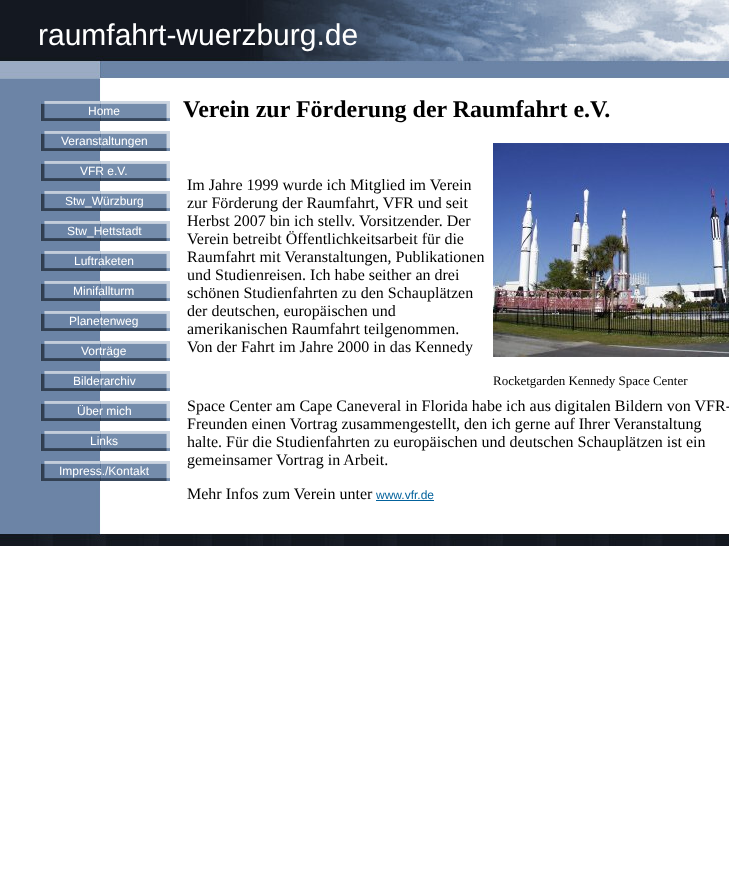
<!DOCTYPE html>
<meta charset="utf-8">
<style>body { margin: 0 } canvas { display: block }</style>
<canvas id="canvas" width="729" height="890"></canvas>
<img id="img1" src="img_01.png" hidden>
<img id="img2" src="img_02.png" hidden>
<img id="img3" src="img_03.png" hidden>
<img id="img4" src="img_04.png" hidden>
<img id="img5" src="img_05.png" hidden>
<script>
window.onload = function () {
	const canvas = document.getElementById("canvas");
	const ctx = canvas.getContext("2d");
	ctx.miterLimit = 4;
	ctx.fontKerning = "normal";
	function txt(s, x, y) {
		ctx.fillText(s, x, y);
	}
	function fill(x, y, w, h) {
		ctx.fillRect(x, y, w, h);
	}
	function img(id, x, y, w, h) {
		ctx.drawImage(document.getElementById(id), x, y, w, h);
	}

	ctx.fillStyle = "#FFFFFF";
	fill(0, 0, 729, 890);
	img("img1", 0, 0, 729, 96);
	img("img2", 0, 96, 101, 429);
	img("img3", 40, 101, 130, 27);
	img("img3", 40, 131, 130, 27);
	img("img3", 40, 161, 130, 27);
	img("img3", 40, 191, 130, 27);
	img("img3", 40, 221, 130, 27);
	img("img3", 40, 251, 130, 27);
	img("img3", 40, 281, 130, 27);
	img("img3", 40, 311, 130, 27);
	img("img3", 40, 341, 130, 27);
	img("img3", 40, 371, 130, 27);
	img("img3", 40, 401, 130, 27);
	img("img3", 40, 431, 130, 27);
	img("img3", 40, 461, 130, 27);
	img("img4", 493, 143, 236, 214);
	ctx.fillStyle = "#03629C";
	fill(376, 500, 58, 1);
	img("img5", 0, 525, 729, 21);
	ctx.font = "30px Liberation Sans";
	ctx.fillStyle = "#FFFFFF";
	txt("raumfahrt-wuerzburg.de", 38, 45);
	ctx.font = "12px Liberation Sans";
	txt("Home", 88, 115);
	txt("Veranstaltungen", 61, 145);
	txt("VFR e.V.", 80, 175);
	txt("Stw_Würzburg", 65, 205);
	txt("Stw_Hettstadt", 67, 235);
	txt("Luftraketen", 74, 265);
	txt("Minifallturm", 73, 295);
	txt("Planetenweg", 69, 325);
	txt("Vorträge", 81, 355);
	txt("Bilderarchiv", 73, 385);
	txt("Über mich", 77, 415);
	txt("Links", 90, 445);
	txt("Impress./Kontakt", 59, 475);
	ctx.font = "bold 24px Liberation Serif";
	ctx.fillStyle = "#000000";
	txt("Verein zur Förderung der Raumfahrt e.V.", 183, 117);
	ctx.font = "16px Liberation Serif";
	txt("Im Jahre 1999 wurde ich Mitglied im Verein", 187, 190);
	txt("zur Förderung der Raumfahrt, VFR und seit", 187, 208);
	txt("Herbst 2007 bin ich stellv. Vorsitzender. Der", 187, 226);
	txt("Verein betreibt Öffentlichkeitsarbeit für die", 187, 244);
	txt("Raumfahrt mit Veranstaltungen, Publikationen", 187, 262);
	txt("und Studienreisen. Ich habe seither an drei", 187, 280);
	txt("schönen Studienfahrten zu den Schauplätzen", 187, 298);
	txt("der deutschen, europäischen und", 187, 316);
	txt("amerikanischen Raumfahrt teilgenommen.", 187, 334);
	txt("Von der Fahrt im Jahre 2000 in das Kennedy", 187, 352);
	ctx.font = "13px Liberation Serif";
	txt("Rocketgarden Kennedy Space Center", 493, 385);
	ctx.font = "16px Liberation Serif";
	txt("Space Center am Cape Caneveral in Florida habe ich aus digitalen Bildern von VFR-", 187, 411);
	txt("Freunden einen Vortrag zusammengestellt, den ich gerne auf Ihrer Veranstaltung", 187, 429);
	txt("halte. Für die Studienfahrten zu europäischen und deutschen Schauplätzen ist ein", 187, 447);
	txt("gemeinsamer Vortrag in Arbeit.", 187, 465);
	txt("Mehr Infos zum Verein unter", 187, 499);
	ctx.font = "12px Liberation Sans";
	ctx.fillStyle = "#03629C";
	txt("www.vfr.de", 376, 499);
};
</script>
